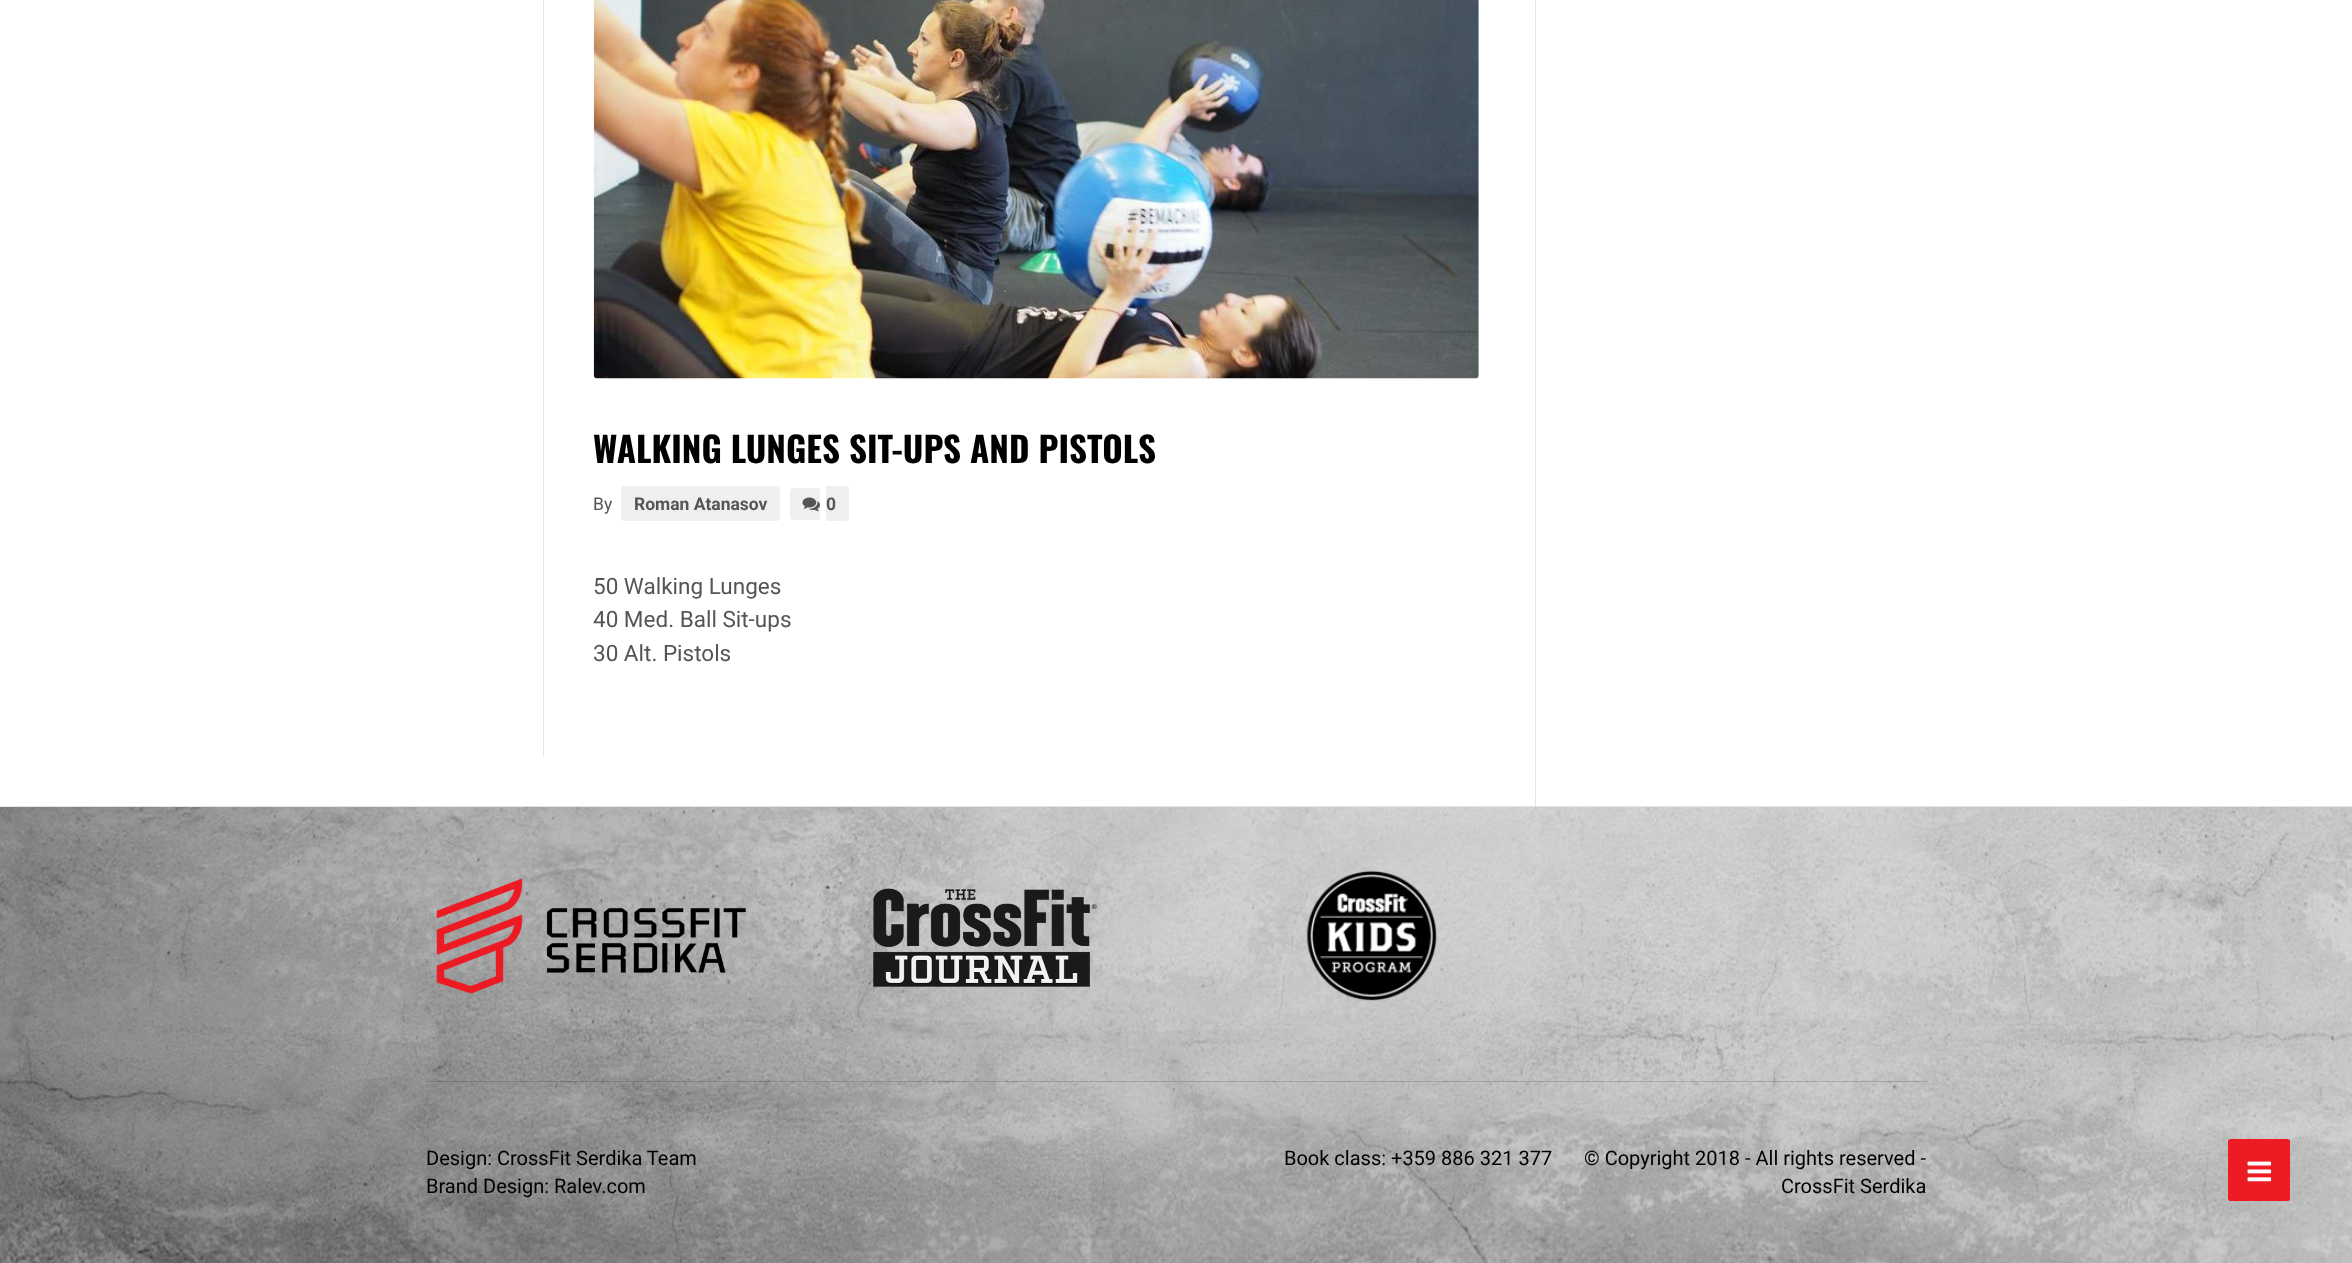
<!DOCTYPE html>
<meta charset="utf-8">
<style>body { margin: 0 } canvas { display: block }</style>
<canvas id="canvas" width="2352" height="1263"></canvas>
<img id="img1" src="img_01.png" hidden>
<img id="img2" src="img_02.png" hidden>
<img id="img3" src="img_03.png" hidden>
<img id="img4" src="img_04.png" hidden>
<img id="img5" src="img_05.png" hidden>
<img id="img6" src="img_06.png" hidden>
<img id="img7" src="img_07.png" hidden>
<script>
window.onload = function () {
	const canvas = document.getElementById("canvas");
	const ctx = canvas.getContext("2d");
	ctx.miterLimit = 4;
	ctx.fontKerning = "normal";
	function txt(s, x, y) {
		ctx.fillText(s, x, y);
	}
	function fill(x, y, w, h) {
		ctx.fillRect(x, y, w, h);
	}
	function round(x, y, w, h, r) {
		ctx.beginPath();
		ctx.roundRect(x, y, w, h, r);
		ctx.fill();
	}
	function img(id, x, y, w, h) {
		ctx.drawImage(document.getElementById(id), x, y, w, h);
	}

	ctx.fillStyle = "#FFFFFF";
	fill(0, 0, 2352, 1263);
	ctx.fillStyle = "#E5E5E5";
	fill(1535, 0, 1, 806);
	fill(543, 0, 1, 756);
	img("img1", 593, 0, 886, 379);
	ctx.fillStyle = "#EFEFEF";
	round(621, 486, 159, 35, 4);
	ctx.beginPath();
	ctx.roundRect(790, 488, 30, 32, [4, 0, 0, 4]);
	ctx.fill();
	ctx.beginPath();
	ctx.roundRect(826, 486, 23, 35, [0, 4, 4, 0]);
	ctx.fill();
	img("img2", 802, 497, 18, 15);
	img("img3", 0, 807, 2352, 456);
	ctx.fillStyle = "#E5E5E5";
	fill(0, 806, 2352, 1);
	img("img4", 436, 878, 310, 116);
	img("img5", 873, 888, 224, 99);
	img("img6", 1306, 870, 131, 131);
	ctx.fillStyle = "rgba(0, 0, 0, 0.15)";
	fill(426, 1081, 1500, 1);
	ctx.fillStyle = "#ED1C24";
	round(2228, 1139, 62, 62, 2.5);
	img("img7", 2247, 1161, 25, 21);
	ctx.font = "bold 35px Oswald";
	ctx.fillStyle = "#000000";
	txt("WALKING LUNGES SIT-UPS AND PISTOLS", 593, 463);
	ctx.font = "17.5px Roboto";
	ctx.fillStyle = "#555555";
	txt("By", 593, 510);
	ctx.font = "bold 17.5px Roboto";
	txt("Roman Atanasov", 634, 510);
	txt("0", 826, 510);
	ctx.font = "22.5px Roboto";
	txt("50 Walking Lunges", 593, 594);
	txt("40 Med. Ball Sit-ups", 593, 627);
	txt("30 Alt. Pistols", 593, 661);
	ctx.font = "20px Roboto";
	ctx.fillStyle = "#000000";
	txt("Design: CrossFit Serdika Team", 426, 1165);
	txt("Brand Design: Ralev.com", 426, 1193);
	txt("Book class: +359 886 321 377", 1284, 1165);
	txt("© Copyright 2018 - All rights reserved -", 1584, 1165);
	txt("CrossFit Serdika", 1781, 1193);
};
</script>
